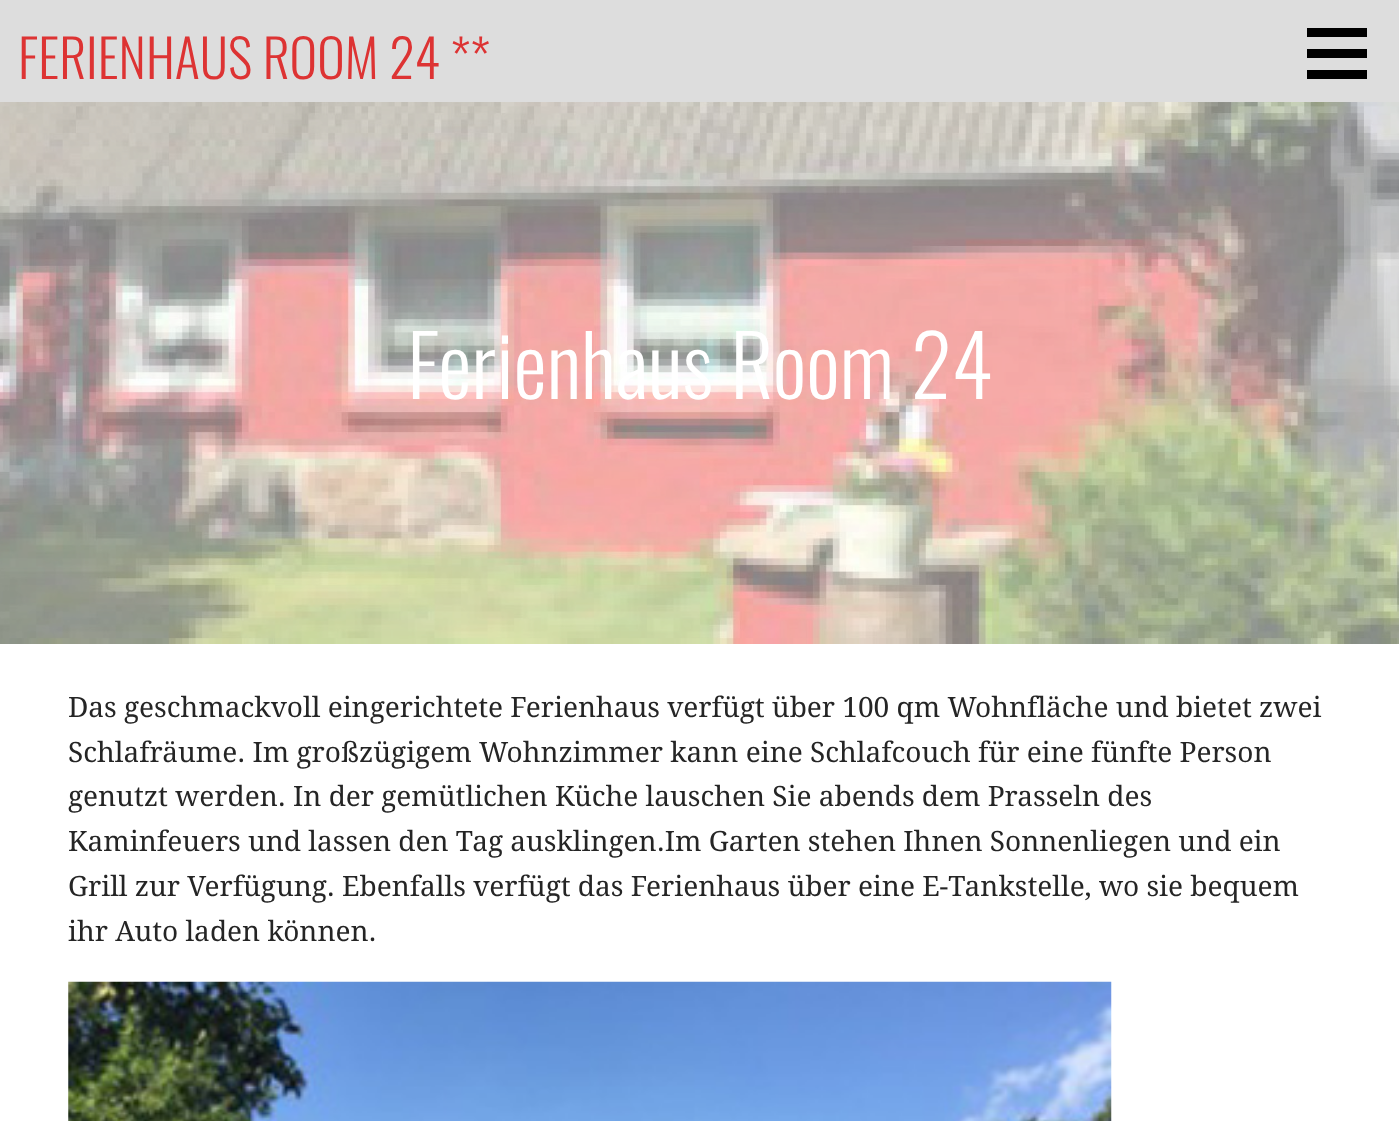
<!DOCTYPE html>
<meta charset="utf-8">
<style>body { margin: 0 } canvas { display: block }</style>
<canvas id="canvas" width="1399" height="1121"></canvas>
<img id="img1" src="img_01.png" hidden>
<img id="img2" src="img_02.png" hidden>
<script>
window.onload = function () {
	const canvas = document.getElementById("canvas");
	const ctx = canvas.getContext("2d");
	ctx.miterLimit = 4;
	ctx.fontKerning = "normal";
	function txt(s, x, y) {
		ctx.fillText(s, x, y);
	}
	function fill(x, y, w, h) {
		ctx.fillRect(x, y, w, h);
	}
	function img(id, x, y, w, h) {
		ctx.drawImage(document.getElementById(id), x, y, w, h);
	}

	ctx.fillStyle = "#FFFFFF";
	fill(0, 0, 1399, 1121);
	img("img1", 0, 102, 1399, 542);
	ctx.fillStyle = "#DDDDDD";
	fill(0, 0, 1399, 102);
	ctx.fillStyle = "#000000";
	fill(1307, 28, 60, 9);
	fill(1307, 49, 60, 9);
	fill(1307, 70, 60, 9);
	img("img2", 68, 981, 1044, 140);
	ctx.font = "300 52.5px Oswald";
	ctx.fillStyle = "#DD3333";
	txt("FERIENHAUS ROOM 24 **", 18, 79);
	ctx.font = "300 84px Oswald";
	ctx.fillStyle = "#FFFFFF";
	txt("Ferienhaus Room 24", 407, 399);
	ctx.font = "28px Droid Serif";
	ctx.fillStyle = "#252525";
	txt("Das geschmackvoll eingerichtete Ferienhaus verfügt über 100 qm Wohnfläche und bietet zwei", 68, 717);
	txt("Schlafräume. Im großzügigem Wohnzimmer kann eine Schlafcouch für eine fünfte Person", 68, 762);
	txt("genutzt werden. In der gemütlichen Küche lauschen Sie abends dem Prasseln des", 68, 806);
	txt("Kaminfeuers und lassen den Tag ausklingen.Im Garten stehen Ihnen Sonnenliegen und ein", 68, 851);
	txt("Grill zur Verfügung. Ebenfalls verfügt das Ferienhaus über eine E-Tankstelle, wo sie bequem", 68, 896);
	txt("ihr Auto laden können.", 68, 941);
};
</script>
